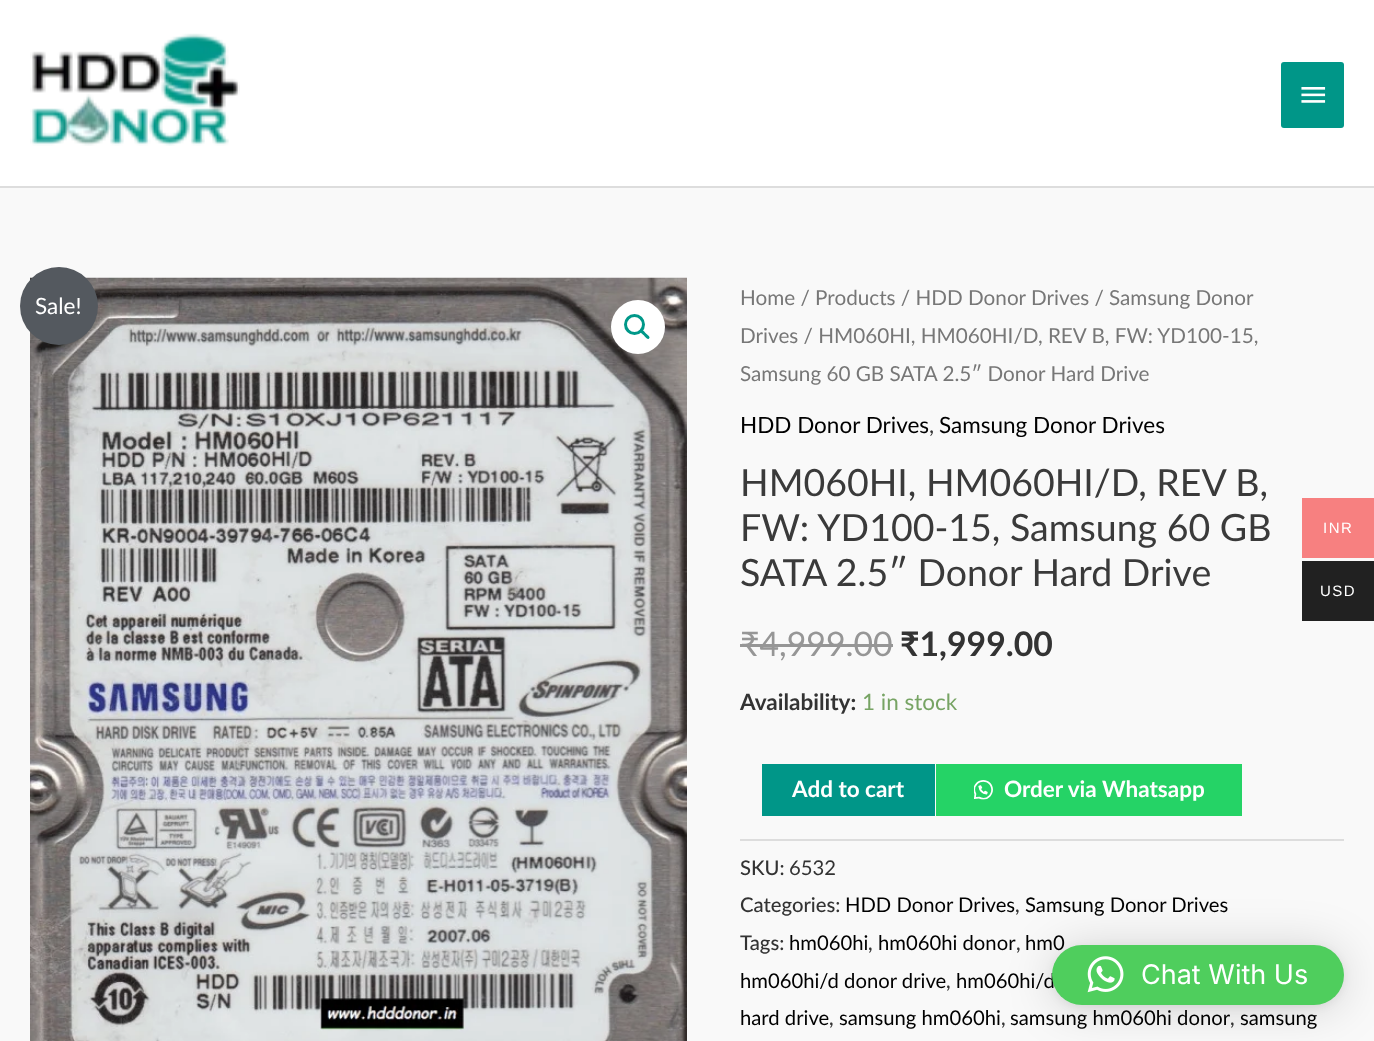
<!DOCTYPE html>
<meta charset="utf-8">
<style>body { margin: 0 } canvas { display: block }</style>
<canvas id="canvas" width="1374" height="1041"></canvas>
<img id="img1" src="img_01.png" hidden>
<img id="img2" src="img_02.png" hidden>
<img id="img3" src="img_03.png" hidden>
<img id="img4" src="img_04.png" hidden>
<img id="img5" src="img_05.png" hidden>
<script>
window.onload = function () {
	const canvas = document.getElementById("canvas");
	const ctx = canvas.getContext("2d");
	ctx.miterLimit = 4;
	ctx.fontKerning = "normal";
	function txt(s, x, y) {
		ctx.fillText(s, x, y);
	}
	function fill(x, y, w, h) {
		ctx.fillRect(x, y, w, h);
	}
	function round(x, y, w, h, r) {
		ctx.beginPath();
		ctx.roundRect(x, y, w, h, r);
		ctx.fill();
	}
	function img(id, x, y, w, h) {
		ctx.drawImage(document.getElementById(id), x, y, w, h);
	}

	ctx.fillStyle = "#F9F9F9";
	fill(0, 0, 1374, 1041);
	ctx.fillStyle = "#FFFFFF";
	fill(0, 0, 1374, 186);
	ctx.fillStyle = "#DDDDDD";
	fill(0, 186, 1374, 2);
	img("img1", 30, 33, 210, 113);
	ctx.fillStyle = "#009688";
	round(1281, 62, 63, 66, 3);
	img("img2", 1301, 87, 25, 16);
	img("img3", 30, 277, 657, 764);
	ctx.fillStyle = "#FFFFFF";
	ctx.beginPath();
	ctx.arc(638, 327, 27, 0, Math.PI * 2);
	ctx.fill();
	ctx.beginPath();
	ctx.arc(634.5, 324.5, 9, 0, Math.PI * 2);
	ctx.strokeStyle = "#009889";
	ctx.lineWidth = 3;
	ctx.stroke();
	ctx.fillStyle = "#009889";
	ctx.beginPath();
	ctx.moveTo(641, 330.5);
	ctx.bezierCurveTo(642.5, 328.5, 645, 332.5, 646, 333.5);
	ctx.bezierCurveTo(647, 334.5, 651, 337, 649, 338.5);
	ctx.bezierCurveTo(647.5, 340.5, 645, 336.5, 644, 335.5);
	ctx.bezierCurveTo(643, 334.5, 639, 332, 641, 330.5);
	ctx.closePath();
	ctx.fill();
	ctx.fillStyle = "#969696";
	fill(740, 644, 153, 3);
	ctx.fillStyle = "#009688";
	fill(762, 764, 173, 52);
	ctx.fillStyle = "#25D366";
	fill(936, 764, 306, 52);
	img("img4", 974, 780, 19, 20);
	ctx.fillStyle = "#DDDDDD";
	fill(740, 839, 604, 2);
	ctx.fillStyle = "#54595F";
	ctx.beginPath();
	ctx.arc(59, 306, 39, 0, Math.PI * 2);
	ctx.fill();
	ctx.fillStyle = "#F78080";
	fill(1302, 498, 72, 60);
	ctx.fillStyle = "#212121";
	fill(1302, 561, 72, 60);
	ctx.fillStyle = "rgba(0, 0, 0, 0.16)";
	ctx.filter = "blur(24px)";
	ctx.beginPath();
	ctx.roundRect(1052, 948, 292, 60, 30);
	ctx.fill();
	ctx.filter = "none";
	ctx.fillStyle = "rgba(0, 0, 0, 0.06)";
	ctx.filter = "blur(4.5px)";
	ctx.beginPath();
	ctx.roundRect(1052, 947, 292, 60, 30);
	ctx.fill();
	ctx.filter = "none";
	ctx.font = "20.7px Lato";
	ctx.fillStyle = "#777777";
	txt("Home / Products / HDD Donor Drives /", 740, 305);
	txt("Samsung Donor", 1109, 305);
	txt("Drives / HM060HI, HM060HI/D, REV B, FW: YD100-15,", 740, 343);
	txt("Samsung 60 GB SATA 2.5″ Donor Hard Drive", 740, 381);
	ctx.font = "22.5px Lato";
	ctx.fillStyle = "#000000";
	txt("HDD Donor Drives", 740, 433);
	ctx.fillStyle = "#333333";
	txt(",", 929, 433);
	ctx.fillStyle = "#000000";
	txt("Samsung Donor Drives", 939, 433);
	ctx.font = "37.5px Lato";
	ctx.fillStyle = "#3A3A3A";
	txt("HM060HI, HM060HI/D, REV B,", 740, 496);
	txt("FW: YD100-15, Samsung 60 GB", 740, 541);
	txt("SATA 2.5″ Donor Hard Drive", 740, 586);
	ctx.font = "33.75px Lato";
	ctx.fillStyle = "#969696";
	txt("₹4,999.00", 740, 656);
	ctx.font = "bold 33.75px Lato";
	ctx.fillStyle = "#333333";
	txt("₹1,999.00", 900, 656);
	ctx.font = "bold 22.5px Lato";
	txt("Availability:", 740, 710);
	ctx.font = "22.5px Lato";
	ctx.fillStyle = "#77A464";
	txt("1 in stock", 862, 710);
	ctx.font = "bold 22.5px Lato";
	ctx.fillStyle = "#FFFFFF";
	txt("Add to cart", 792, 797);
	txt("Order via Whatsapp", 1004, 797);
	ctx.font = "500 20.25px Lato";
	ctx.fillStyle = "#333333";
	txt("SKU:", 740, 875);
	ctx.font = "20.25px Lato";
	txt("6532", 789, 875);
	ctx.font = "500 20.25px Lato";
	txt("Categories:", 740, 912);
	ctx.font = "20.25px Lato";
	ctx.fillStyle = "#000000";
	txt("HDD Donor Drives", 845, 912);
	ctx.font = "500 20.25px Lato";
	ctx.fillStyle = "#333333";
	txt(",", 1015, 912);
	ctx.font = "20.25px Lato";
	ctx.fillStyle = "#000000";
	txt("Samsung Donor Drives", 1025, 912);
	ctx.font = "500 20.25px Lato";
	ctx.fillStyle = "#333333";
	txt("Tags:", 740, 950);
	ctx.font = "20.25px Lato";
	ctx.fillStyle = "#000000";
	txt("hm060hi", 789, 950);
	ctx.font = "500 20.25px Lato";
	ctx.fillStyle = "#333333";
	txt(",", 868, 950);
	ctx.font = "20.25px Lato";
	ctx.fillStyle = "#000000";
	txt("hm060hi donor", 878, 950);
	ctx.font = "500 20.25px Lato";
	ctx.fillStyle = "#333333";
	txt(",", 1016, 950);
	ctx.font = "20.25px Lato";
	ctx.fillStyle = "#000000";
	txt("hm0", 1025, 950);
	txt("hm060hi/d donor drive", 740, 988);
	ctx.font = "500 20.25px Lato";
	ctx.fillStyle = "#333333";
	txt(",", 946, 988);
	ctx.font = "20.25px Lato";
	ctx.fillStyle = "#000000";
	txt("hm060hi/d", 956, 988);
	txt("hard drive", 740, 1025);
	ctx.font = "500 20.25px Lato";
	ctx.fillStyle = "#333333";
	txt(",", 829, 1025);
	ctx.font = "20.25px Lato";
	ctx.fillStyle = "#000000";
	txt("samsung hm060hi", 839, 1025);
	ctx.font = "500 20.25px Lato";
	ctx.fillStyle = "#333333";
	txt(",", 1001, 1025);
	ctx.font = "20.25px Lato";
	ctx.fillStyle = "#000000";
	txt("samsung hm060hi donor", 1010, 1025);
	ctx.font = "500 20.25px Lato";
	ctx.fillStyle = "#333333";
	txt(",", 1230, 1025);
	ctx.font = "20.25px Lato";
	ctx.fillStyle = "#000000";
	txt("samsung", 1240, 1025);
	ctx.font = "22.5px Lato";
	ctx.fillStyle = "#FFFFFF";
	txt("Sale!", 35, 314);
	ctx.letterSpacing = "1.5px";
	ctx.font = "15px Liberation Sans";
	txt("INR", 1323, 533);
	txt("USD", 1320, 596);
	ctx.fillStyle = "#4FCE5D";
	round(1052, 945, 292, 60, 30);
	img("img5", 1087, 956, 37, 37);
	ctx.letterSpacing = "0px";
	ctx.font = "27px Inter";
	ctx.fillStyle = "#FFFFFF";
	txt("Chat With Us", 1141, 984);
};
</script>
